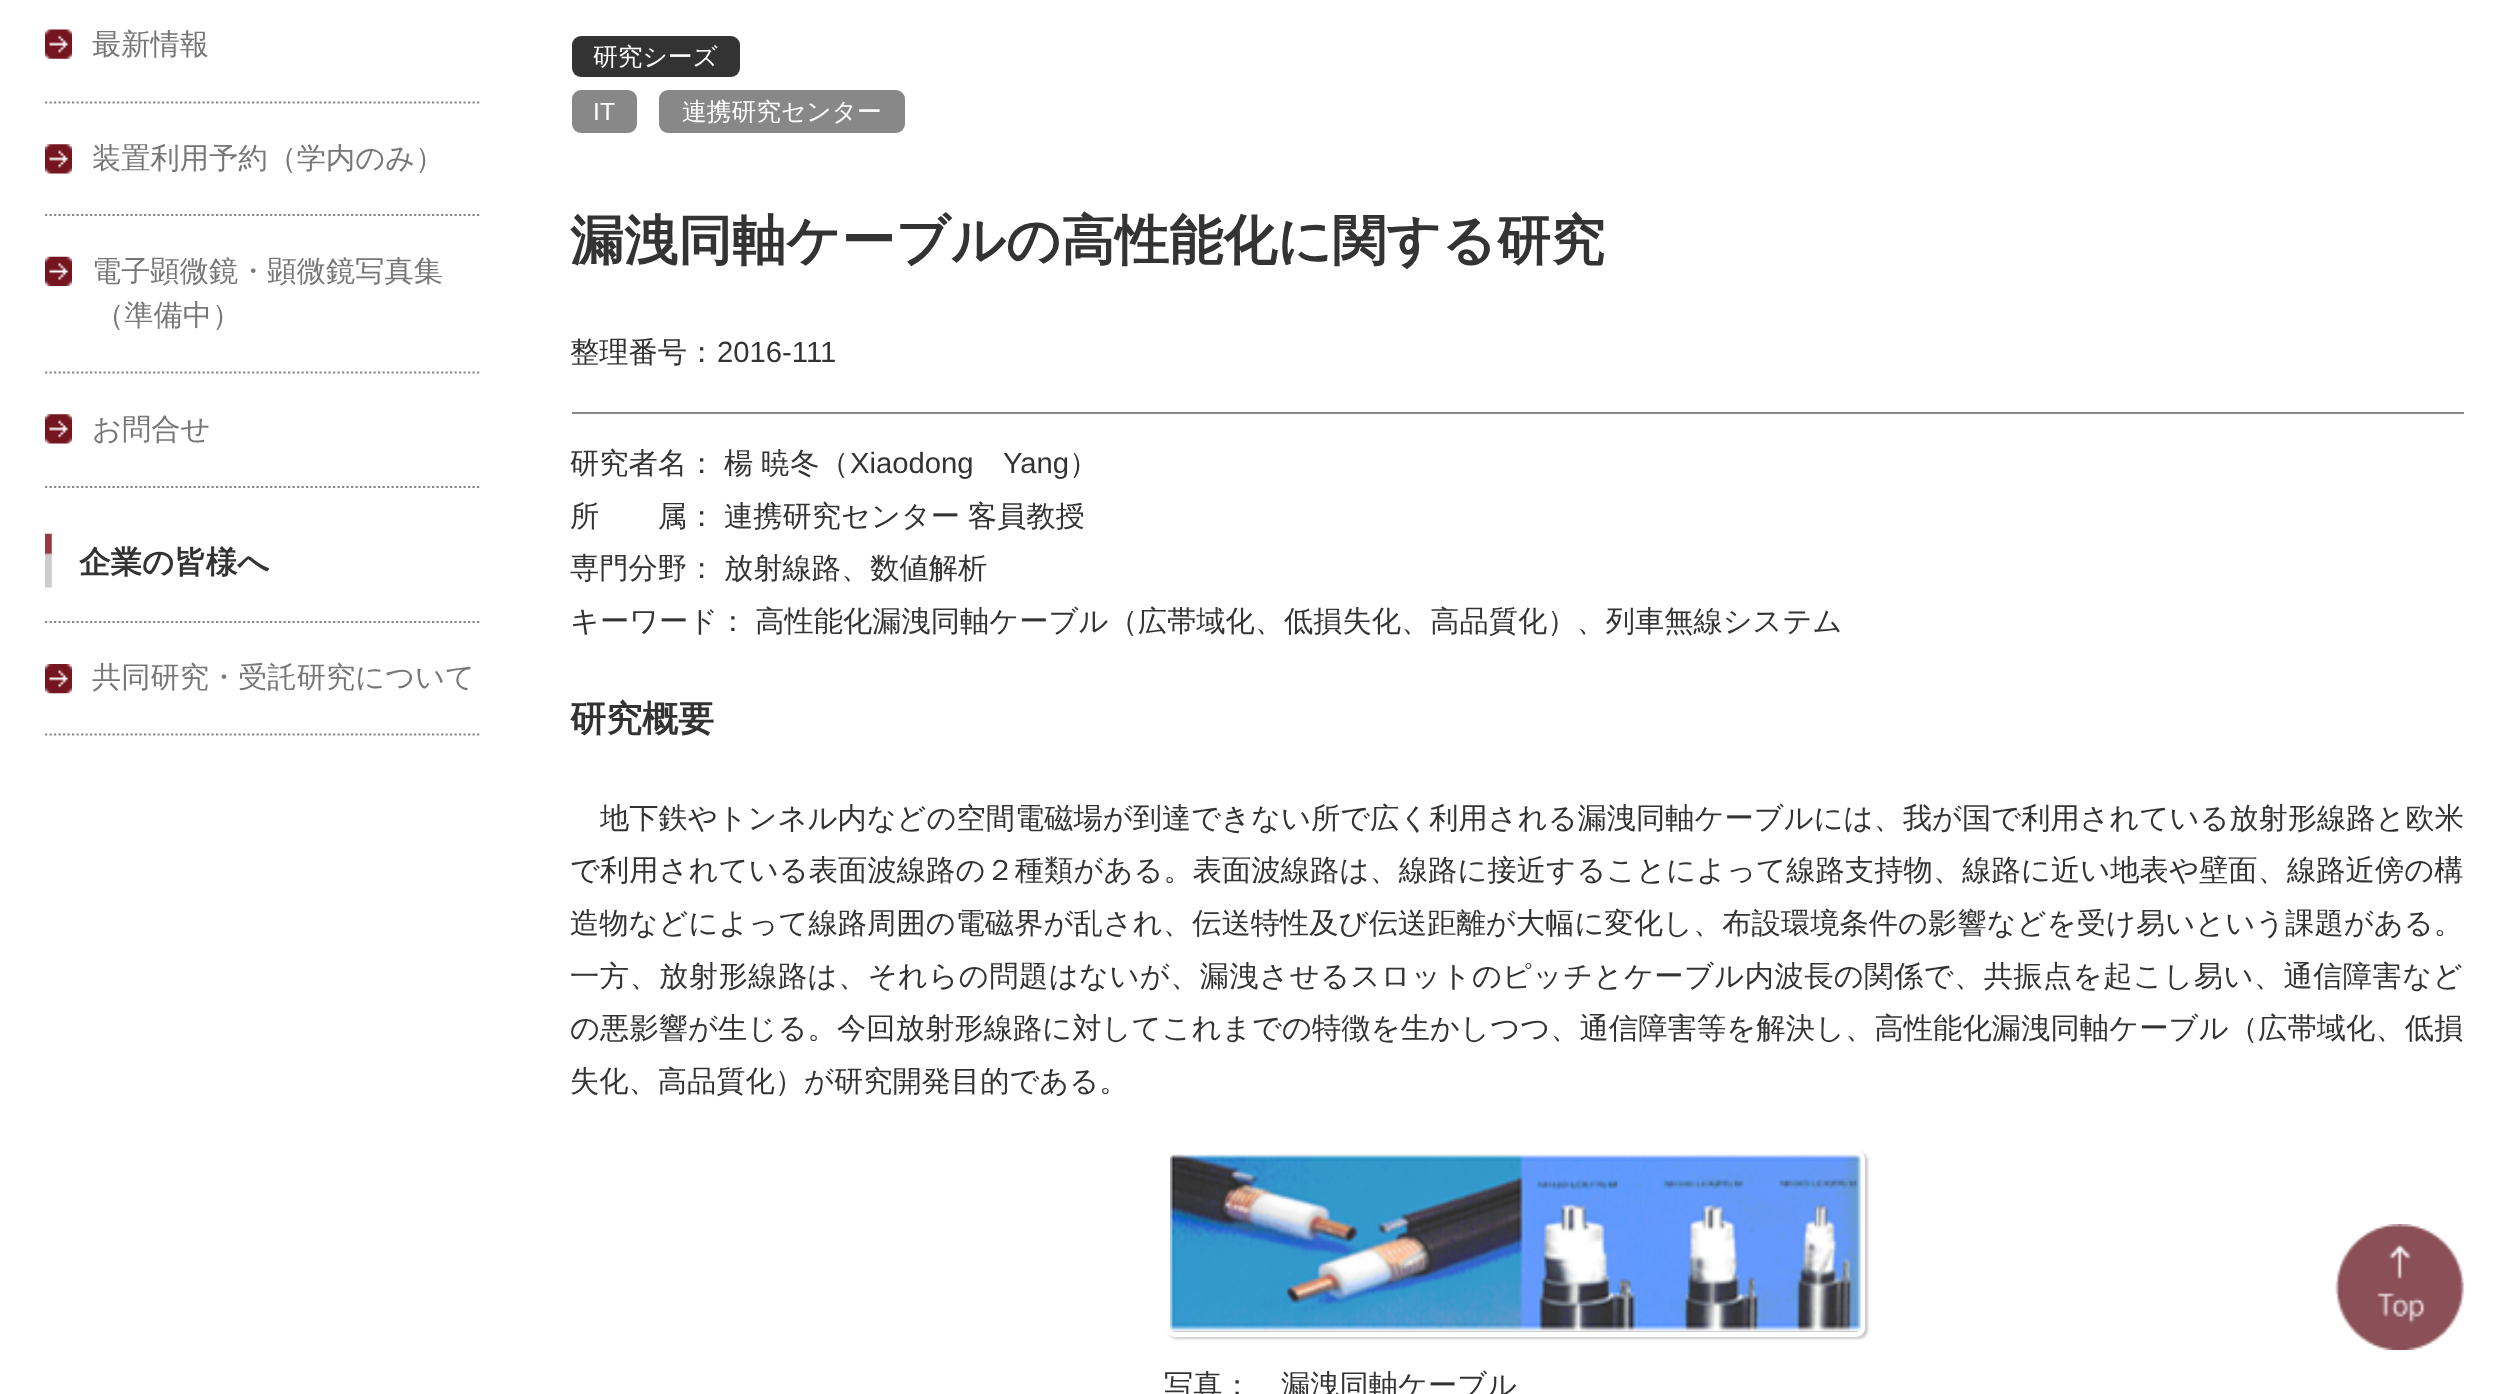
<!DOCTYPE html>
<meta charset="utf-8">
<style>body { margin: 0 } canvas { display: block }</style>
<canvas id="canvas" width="2508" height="1394"></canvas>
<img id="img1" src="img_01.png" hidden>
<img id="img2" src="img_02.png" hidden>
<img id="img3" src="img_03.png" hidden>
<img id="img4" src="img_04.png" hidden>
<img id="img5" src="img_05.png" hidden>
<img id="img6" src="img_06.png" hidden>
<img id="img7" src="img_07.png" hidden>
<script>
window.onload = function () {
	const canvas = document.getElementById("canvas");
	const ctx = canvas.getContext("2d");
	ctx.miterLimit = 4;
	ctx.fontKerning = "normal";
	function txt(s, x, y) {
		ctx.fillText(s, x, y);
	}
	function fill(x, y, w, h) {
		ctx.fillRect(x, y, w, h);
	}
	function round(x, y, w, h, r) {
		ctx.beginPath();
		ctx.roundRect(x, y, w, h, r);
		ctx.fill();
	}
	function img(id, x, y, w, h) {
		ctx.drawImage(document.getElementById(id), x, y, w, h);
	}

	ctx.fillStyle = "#FFFFFF";
	fill(0, 0, 2508, 1394);
	img("img1", 45, 29, 27, 30);
	ctx.beginPath();
	ctx.moveTo(45, 102.5);
	ctx.lineTo(481.5, 102.5);
	ctx.strokeStyle = "#888888";
	ctx.lineWidth = 2.2;
	ctx.setLineDash([2.25, 2.25]);
	ctx.stroke();
	img("img2", 45, 144, 27, 30);
	ctx.beginPath();
	ctx.moveTo(45, 215);
	ctx.lineTo(481.5, 215);
	ctx.stroke();
	img("img3", 45, 256, 27, 30);
	ctx.beginPath();
	ctx.moveTo(45, 372.5);
	ctx.lineTo(481.5, 372.5);
	ctx.stroke();
	img("img2", 45, 414, 27, 30);
	ctx.save();
	ctx.beginPath();
	ctx.rect(45, 0, 437, 488);
	ctx.clip();
	ctx.beginPath();
	ctx.moveTo(45, 487);
	ctx.lineTo(481.5, 487);
	ctx.stroke();
	ctx.restore();
	img("img4", 45, 533, 7, 55);
	ctx.beginPath();
	ctx.moveTo(45, 622);
	ctx.lineTo(481.5, 622);
	ctx.stroke();
	img("img5", 45, 664, 27, 30);
	ctx.beginPath();
	ctx.moveTo(45, 734.5);
	ctx.lineTo(481.5, 734.5);
	ctx.stroke();
	ctx.fillStyle = "#333333";
	round(572, 36, 168, 41, 9);
	ctx.fillStyle = "#888888";
	round(572, 90, 65, 43, 9);
	round(659, 90, 246, 43, 9);
	fill(572, 412, 1892, 2);
	ctx.fillStyle = "rgba(0, 0, 0, 0.2)";
	ctx.filter = "blur(1px)";
	ctx.beginPath();
	ctx.roundRect(1168, 1152, 700, 187, 9);
	ctx.fill();
	ctx.filter = "none";
	ctx.beginPath();
	ctx.roundRect(1168.5, 1152.5, 694, 182, 6.5);
	ctx.strokeStyle = "#FFFFFF";
	ctx.lineWidth = 5;
	ctx.setLineDash([]);
	ctx.stroke();
	img("img6", 1170, 1154, 691, 177);
	img("img7", 2335, 1224, 130, 126);
	ctx.font = "500 29.25px WenQuanYi Zen Hei";
	ctx.fillStyle = "#777777";
	txt("最新情報", 92, 54);
	txt("装置利用予約（学内のみ）", 92, 168);
	txt("電子顕微鏡・顕微鏡写真集", 92, 281);
	txt("（準備中）", 95, 325);
	txt("お問合せ", 92, 439);
	ctx.font = "bold 31.5px WenQuanYi Zen Hei";
	ctx.fillStyle = "#333333";
	txt("企業の皆様へ", 79, 573);
	ctx.font = "500 29.25px WenQuanYi Zen Hei";
	ctx.fillStyle = "#777777";
	txt("共同研究・受託研究について", 92, 687);
	ctx.font = "500 24.75px WenQuanYi Zen Hei";
	ctx.fillStyle = "#FFFFFF";
	txt("研究シーズ", 593, 65);
	ctx.font = "24.75px Liberation Sans";
	txt("IT", 593, 120);
	ctx.font = "500 24.75px WenQuanYi Zen Hei";
	txt("連携研究センター", 682, 120);
	ctx.font = "bold 54px WenQuanYi Zen Hei";
	ctx.fillStyle = "#333333";
	txt("漏洩同軸ケーブルの高性能化に関する研究", 570, 259);
	ctx.font = "500 29.25px WenQuanYi Zen Hei";
	txt("整理番号：", 570, 362);
	ctx.font = "29.25px Liberation Sans";
	txt("2016-111", 717, 362);
	ctx.wordSpacing = "-1px";
	ctx.font = "500 29.25px WenQuanYi Zen Hei";
	txt("研究者名： 楊 暁冬（", 570, 473);
	ctx.wordSpacing = "0px";
	ctx.font = "29.25px Liberation Sans";
	txt("Xiaodong", 850, 473);
	txt("Yang", 1003, 473);
	ctx.font = "500 29.25px WenQuanYi Zen Hei";
	txt("）", 1069, 473);
	ctx.wordSpacing = "-1px";
	txt("所　　属： 連携研究センター 客員教授", 570, 526);
	txt("専門分野： 放射線路、数値解析", 570, 578);
	txt("キーワード： 高性能化漏洩同軸ケーブル（広帯域化、低損失化、高品質化）、列車無線システム", 570, 631);
	ctx.wordSpacing = "0px";
	ctx.font = "bold 36px WenQuanYi Zen Hei";
	txt("研究概要", 570, 731);
	ctx.font = "500 29.25px WenQuanYi Zen Hei";
	txt("地下鉄やトンネル内などの空間電磁場が到達できない所で広く利用される漏洩同軸ケーブルには、我が国で利用されている放射形線路と欧米", 600, 828);
	ctx.letterSpacing = "0.08px";
	txt("で利用されている表面波線路の２種類がある。表面波線路は、線路に接近することによって線路支持物、線路に近い地表や壁面、線路近傍の構", 570, 880);
	ctx.letterSpacing = "0.05px";
	txt("造物などによって線路周囲の電磁界が乱され、伝送特性及び伝送距離が大幅に変化し、布設環境条件の影響などを受け易いという課題がある。", 570, 933);
	ctx.letterSpacing = "0.45px";
	txt("一方、放射形線路は、それらの問題はないが、漏洩させるスロットのピッチとケーブル内波長の関係で、共振点を起こし易い、通信障害など", 570, 986);
	ctx.letterSpacing = "0.1px";
	txt("の悪影響が生じる。今回放射形線路に対してこれまでの特徴を生かしつつ、通信障害等を解決し、高性能化漏洩同軸ケーブル（広帯域化、低損", 570, 1038);
	ctx.letterSpacing = "0px";
	txt("失化、高品質化）が研究開発目的である。", 570, 1091);
	txt("写真：　漏洩同軸ケーブル", 1164, 1395);
};
</script>
